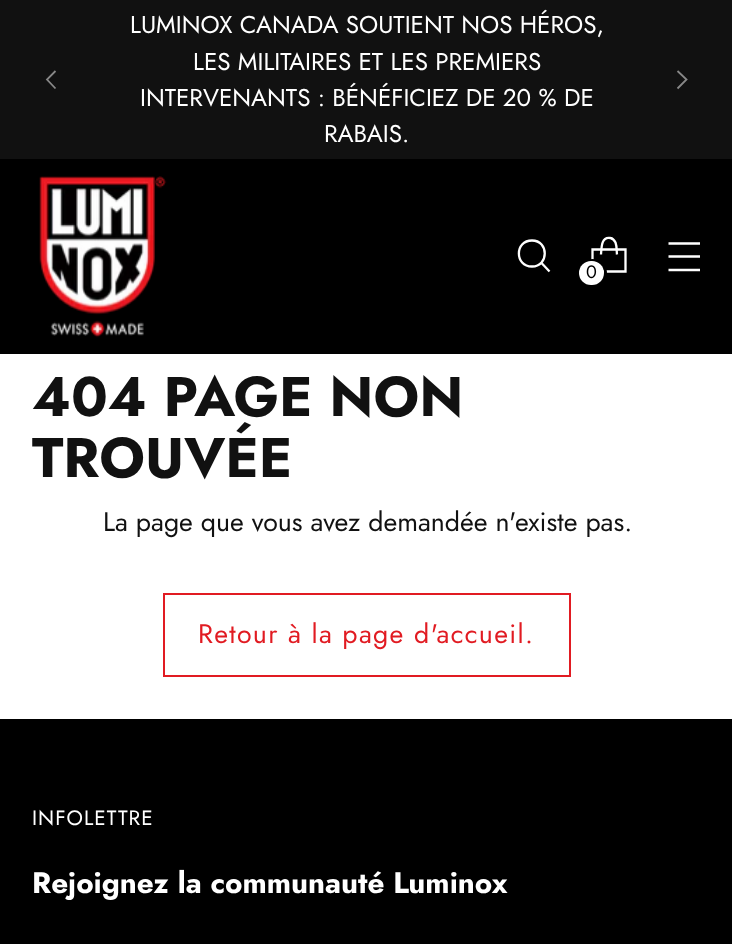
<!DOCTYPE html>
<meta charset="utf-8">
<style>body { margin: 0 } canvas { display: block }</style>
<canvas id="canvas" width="732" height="944"></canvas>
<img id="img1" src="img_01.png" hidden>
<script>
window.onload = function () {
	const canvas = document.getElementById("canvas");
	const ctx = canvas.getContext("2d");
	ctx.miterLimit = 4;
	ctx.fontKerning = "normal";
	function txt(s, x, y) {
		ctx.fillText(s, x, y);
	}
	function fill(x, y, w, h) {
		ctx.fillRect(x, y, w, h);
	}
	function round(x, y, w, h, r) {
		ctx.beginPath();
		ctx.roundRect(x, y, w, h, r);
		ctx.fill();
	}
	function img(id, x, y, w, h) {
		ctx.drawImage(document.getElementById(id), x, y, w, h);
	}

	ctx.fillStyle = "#FFFFFF";
	fill(0, 0, 732, 944);
	ctx.fillStyle = "#111111";
	fill(0, 0, 732, 159);
	ctx.beginPath();
	ctx.moveTo(55.5, 71);
	ctx.lineTo(47, 79.5);
	ctx.lineTo(55.5, 88.5);
	ctx.strokeStyle = "#888888";
	ctx.lineWidth = 1.8;
	ctx.stroke();
	ctx.beginPath();
	ctx.moveTo(677.5, 88.5);
	ctx.lineTo(686.5, 79.5);
	ctx.lineTo(677.5, 71);
	ctx.stroke();
	ctx.fillStyle = "#000000";
	fill(0, 159, 732, 195);
	img("img1", 39, 176, 128, 162);
	ctx.beginPath();
	ctx.moveTo(532, 266.5);
	ctx.bezierCurveTo(549, 266.5, 549, 240.5, 532, 240.5);
	ctx.bezierCurveTo(514.5, 240.5, 514.5, 266.5, 532, 266.5);
	ctx.closePath();
	ctx.strokeStyle = "#FFFFFF";
	ctx.lineWidth = 2.3;
	ctx.lineCap = "round";
	ctx.stroke();
	ctx.beginPath();
	ctx.moveTo(541.5, 263);
	ctx.lineTo(549.5, 271.5);
	ctx.lineCap = "butt";
	ctx.stroke();
	ctx.beginPath();
	ctx.moveTo(617, 254.5);
	ctx.bezierCurveTo(616.5, 250.5, 617, 246.5, 615.5, 242.5);
	ctx.bezierCurveTo(614.5, 240.5, 613, 238.5, 610.5, 238);
	ctx.bezierCurveTo(601, 236, 601.5, 248.5, 601, 254.5);
	ctx.lineJoin = "bevel";
	ctx.stroke();
	ctx.beginPath();
	ctx.moveTo(625.5, 271.5);
	ctx.lineTo(625.5, 249.5);
	ctx.lineTo(592.5, 249.5);
	ctx.lineTo(592.5, 271.5);
	ctx.closePath();
	ctx.lineJoin = "miter";
	ctx.stroke();
	ctx.beginPath();
	ctx.roundRect(579.5, 260.5, 26, 27, 13);
	ctx.strokeStyle = "#000000";
	ctx.lineWidth = 3;
	ctx.stroke();
	ctx.fillStyle = "#FFFFFF";
	round(579, 261, 25, 24, 12);
	ctx.beginPath();
	ctx.moveTo(668.5, 256.5);
	ctx.lineTo(700, 256.5);
	ctx.moveTo(668.5, 243.5);
	ctx.lineTo(700, 243.5);
	ctx.moveTo(668.5, 270);
	ctx.lineTo(700, 270);
	ctx.strokeStyle = "#FFFFFF";
	ctx.lineWidth = 2.3;
	ctx.stroke();
	ctx.strokeStyle = "#E11B22";
	ctx.lineWidth = 2;
	ctx.strokeRect(164, 594, 406, 82);
	ctx.fillStyle = "#000000";
	fill(0, 719, 732, 225);
	ctx.font = "24.25px Jost";
	ctx.fillStyle = "#FFFFFF";
	txt("LUMINOX CANADA SOUTIENT NOS HÉROS,", 130, 33);
	txt("LES MILITAIRES ET LES PREMIERS", 193, 70);
	txt("INTERVENANTS : BÉNÉFICIEZ DE 20 % DE", 140, 106);
	txt("RABAIS.", 324, 142);
	ctx.font = "18px Jost";
	ctx.fillStyle = "#000000";
	txt("0", 586, 278);
	ctx.font = "bold 55.75px Jost";
	ctx.fillStyle = "#111111";
	txt("404 PAGE NON", 32, 416);
	txt("TROUVÉE", 32, 477);
	ctx.font = "26.7px Jost";
	txt("La page que vous avez demandée n'existe pas.", 103, 531);
	ctx.letterSpacing = "1.3px";
	ctx.fillStyle = "#E11B22";
	txt("Retour à la page d'accueil.", 198, 643);
	ctx.letterSpacing = "1px";
	ctx.font = "20.75px Jost";
	ctx.fillStyle = "#FFFFFF";
	txt("INFOLETTRE", 32, 825);
	ctx.letterSpacing = "0px";
	ctx.font = "bold 29.6px Jost";
	txt("Rejoignez la communauté Luminox", 32, 893);
};
</script>
